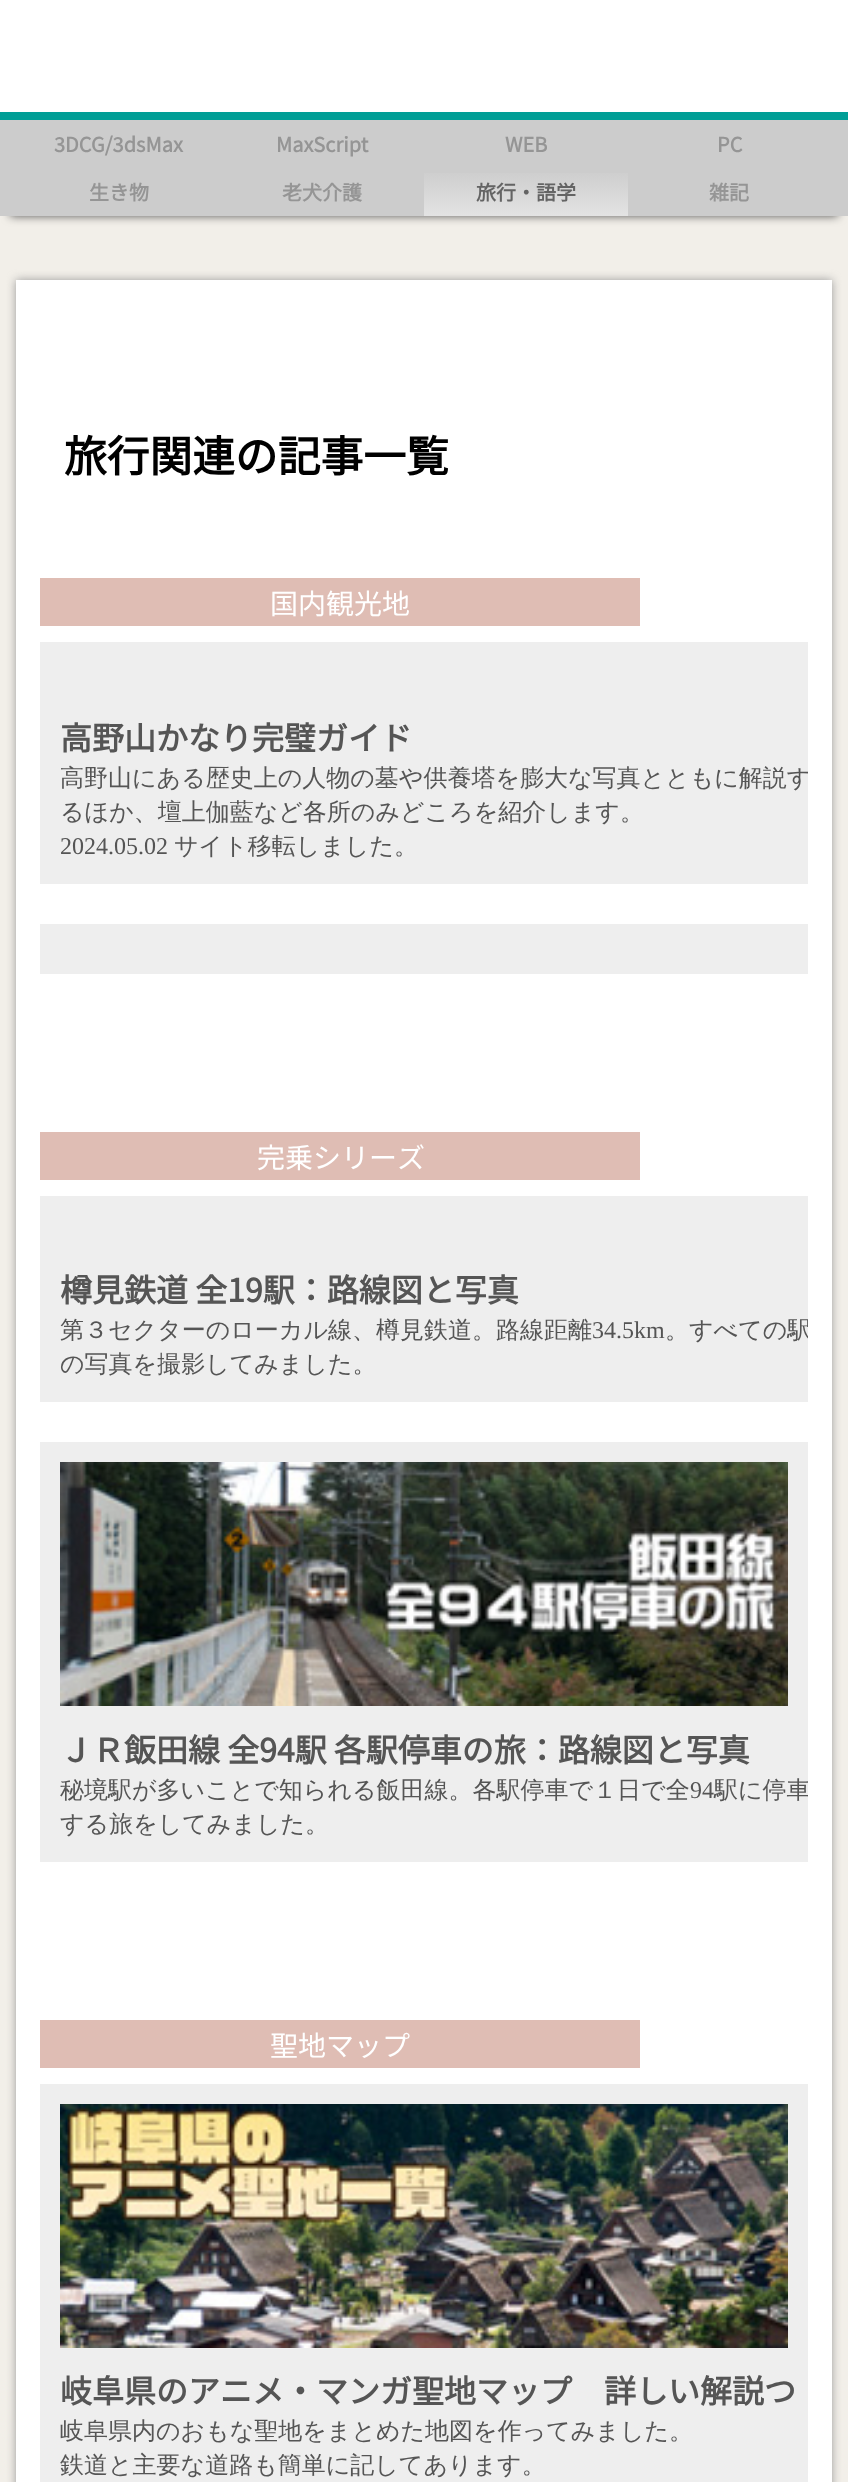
<!DOCTYPE html>
<meta charset="utf-8">
<style>body { margin: 0 } canvas { display: block }</style>
<canvas id="canvas" width="848" height="2482"></canvas>
<img id="img1" src="img_01.png" hidden>
<img id="img2" src="img_02.png" hidden>
<script>
window.onload = function () {
	const canvas = document.getElementById("canvas");
	const ctx = canvas.getContext("2d");
	ctx.miterLimit = 4;
	ctx.fontKerning = "normal";
	function txt(s, x, y) {
		ctx.fillText(s, x, y);
	}
	function fill(x, y, w, h) {
		ctx.fillRect(x, y, w, h);
	}
	function img(id, x, y, w, h) {
		ctx.drawImage(document.getElementById(id), x, y, w, h);
	}
	let gradient;

	ctx.fillStyle = "#F2EFE9";
	fill(0, 0, 848, 2482);
	ctx.fillStyle = "#FFFFFF";
	fill(0, 0, 848, 112);
	ctx.fillStyle = "#009E96";
	fill(0, 112, 848, 8);
	ctx.fillStyle = "#555555";
	ctx.filter = "blur(5px)";
	ctx.beginPath();
	ctx.rect(10, 140, 828, 76);
	ctx.fill();
	ctx.filter = "none";
	ctx.fillStyle = "#CCCCCC";
	fill(0, 120, 848, 96);
	gradient = ctx.createLinearGradient(526, 216, 526, 168);
	gradient.addColorStop(0, "#E3E3E3");
	gradient.addColorStop(1, "#CCCCCC");
	ctx.fillStyle = gradient;
	fill(424, 173, 204, 43);
	ctx.fillStyle = "#999999";
	ctx.filter = "blur(5px)";
	ctx.beginPath();
	ctx.rect(16, 280, 816, 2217);
	ctx.fill();
	ctx.filter = "none";
	ctx.fillStyle = "#FFFFFF";
	fill(16, 280, 816, 2202);
	ctx.fillStyle = "#DFBDB4";
	fill(40, 578, 600, 48);
	ctx.fillStyle = "#EEEEEE";
	fill(40, 642, 768, 242);
	fill(40, 924, 768, 50);
	ctx.fillStyle = "#DFBDB4";
	fill(40, 1132, 600, 48);
	ctx.fillStyle = "#EEEEEE";
	fill(40, 1196, 768, 206);
	fill(40, 1442, 768, 420);
	img("img1", 60, 1462, 728, 244);
	ctx.fillStyle = "#DFBDB4";
	fill(40, 2020, 600, 48);
	ctx.fillStyle = "#EEEEEE";
	fill(40, 2084, 768, 398);
	img("img2", 60, 2104, 728, 244);
	ctx.font = "bold 20px Noto Sans JP";
	ctx.fillStyle = "#959595";
	txt("3DCG/3dsMax", 54, 152);
	txt("MaxScript", 276, 152);
	txt("WEB", 505, 152);
	txt("PC", 717, 152);
	txt("生き物", 89, 200);
	txt("老犬介護", 282, 200);
	ctx.fillStyle = "#646464";
	txt("旅行・語学", 476, 200);
	ctx.fillStyle = "#959595";
	txt("雑記", 709, 200);
	ctx.font = "bold 42.75px Noto Sans JP";
	ctx.fillStyle = "#000000";
	txt("旅行関連の記事一覧", 64, 472);
	ctx.font = "100 28px Noto Sans JP";
	ctx.fillStyle = "#FFFFFF";
	txt("国内観光地", 270, 614);
	ctx.font = "bold 32px Noto Sans JP";
	ctx.fillStyle = "#555555";
	txt("高野山かなり完璧ガイド", 60, 750);
	ctx.save();
	ctx.beginPath();
	ctx.rect(40, 642, 768, 372);
	ctx.clip();
	ctx.font = "500 24px WenQuanYi Zen Hei";
	txt("高野山にある歴史上の人物の墓や供養塔を膨大な写真とともに解説す", 60, 786);
	ctx.restore();
	ctx.font = "500 24px WenQuanYi Zen Hei";
	txt("るほか、壇上伽藍など各所のみどころを紹介します。", 60, 820);
	ctx.font = "24px Liberation Serif";
	txt("2024.05.02", 60, 854);
	ctx.font = "500 24px WenQuanYi Zen Hei";
	txt("サイト移転しました。", 174, 854);
	ctx.font = "100 28px Noto Sans JP";
	ctx.fillStyle = "#FFFFFF";
	txt("完乗シリーズ", 257, 1168);
	ctx.font = "bold 32px Noto Sans JP";
	ctx.fillStyle = "#555555";
	txt("樽見鉄道 全19駅：路線図と写真", 60, 1302);
	ctx.font = "500 24px WenQuanYi Zen Hei";
	txt("第３セクターのローカル線、樽見鉄道。路線距離", 60, 1338);
	ctx.font = "24px Liberation Serif";
	txt("34.5km", 592, 1338);
	ctx.save();
	ctx.beginPath();
	ctx.rect(40, 1196, 768, 706);
	ctx.clip();
	ctx.font = "500 24px WenQuanYi Zen Hei";
	txt("。すべての駅", 665, 1338);
	ctx.restore();
	ctx.font = "500 24px WenQuanYi Zen Hei";
	txt("の写真を撮影してみました。", 60, 1372);
	ctx.font = "bold 32px Noto Sans JP";
	txt("ＪＲ飯田線 全94駅 各駅停車の旅：路線図と写真", 60, 1762);
	ctx.font = "500 24px WenQuanYi Zen Hei";
	txt("秘境駅が多いことで知られる飯田線。各駅停車で１日で全", 60, 1798);
	ctx.font = "24px Liberation Serif";
	txt("94", 690, 1798);
	ctx.save();
	ctx.beginPath();
	ctx.rect(40, 1196, 768, 706);
	ctx.clip();
	ctx.font = "500 24px WenQuanYi Zen Hei";
	txt("駅に停車", 714, 1798);
	ctx.restore();
	ctx.font = "500 24px WenQuanYi Zen Hei";
	txt("する旅をしてみました。", 60, 1832);
	ctx.font = "100 28px Noto Sans JP";
	ctx.fillStyle = "#FFFFFF";
	txt("聖地マップ", 270, 2056);
	ctx.font = "bold 32px Noto Sans JP";
	ctx.fillStyle = "#555555";
	txt("岐阜県のアニメ・マンガ聖地マップ　詳しい解説つ", 60, 2403);
	ctx.font = "500 24px WenQuanYi Zen Hei";
	txt("岐阜県内のおもな聖地をまとめた地図を作ってみました。", 60, 2439);
	txt("鉄道と主要な道路も簡単に記してあります。", 60, 2473);
};
</script>
